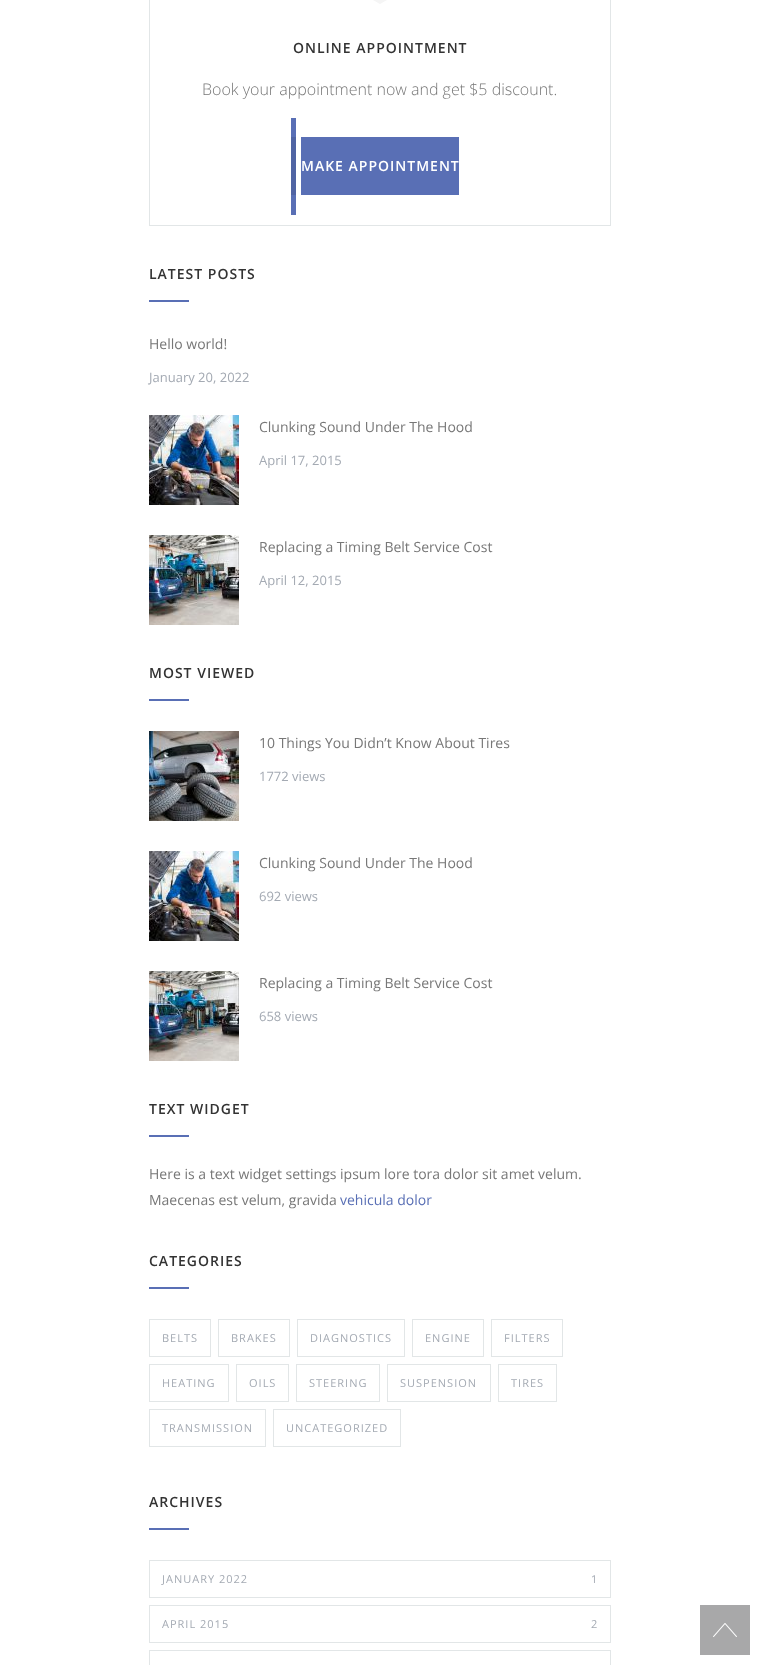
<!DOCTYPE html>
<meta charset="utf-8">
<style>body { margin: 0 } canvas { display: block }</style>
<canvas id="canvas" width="760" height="1665"></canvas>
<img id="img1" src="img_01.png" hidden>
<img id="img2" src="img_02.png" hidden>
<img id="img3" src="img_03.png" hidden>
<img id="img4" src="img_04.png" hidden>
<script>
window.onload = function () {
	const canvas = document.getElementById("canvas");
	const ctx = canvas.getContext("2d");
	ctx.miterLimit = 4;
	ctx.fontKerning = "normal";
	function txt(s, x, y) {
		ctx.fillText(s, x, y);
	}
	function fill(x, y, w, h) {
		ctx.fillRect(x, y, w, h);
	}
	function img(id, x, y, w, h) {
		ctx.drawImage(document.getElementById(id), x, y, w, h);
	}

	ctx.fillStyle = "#FFFFFF";
	fill(0, 0, 760, 1665);
	ctx.strokeStyle = "#E2E6E7";
	ctx.strokeRect(149.5, -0.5, 461, 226);
	ctx.fillStyle = "#F5F5F5";
	ctx.beginPath();
	ctx.moveTo(335, -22);
	ctx.lineTo(380, -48);
	ctx.lineTo(425, -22);
	ctx.lineTo(380, 4);
	ctx.closePath();
	ctx.fill();
	ctx.fillStyle = "#596FB5";
	fill(291, 118, 5, 97);
	fill(301, 137, 158, 58);
	ctx.fillStyle = "#5064A3";
	fill(291, 137, 5, 58);
	ctx.fillStyle = "#596FB5";
	fill(149, 300, 40, 2);
	img("img1", 149, 415, 90, 90);
	img("img2", 149, 535, 90, 90);
	fill(149, 699, 40, 2);
	img("img3", 149, 731, 90, 90);
	img("img1", 149, 851, 90, 90);
	img("img2", 149, 971, 90, 90);
	fill(149, 1135, 40, 2);
	fill(149, 1287, 40, 2);
	ctx.strokeRect(149.5, 1319.5, 61, 37);
	ctx.strokeRect(218.5, 1319.5, 71, 37);
	ctx.strokeRect(297.5, 1319.5, 107, 37);
	ctx.strokeRect(412.5, 1319.5, 71, 37);
	ctx.strokeRect(491.5, 1319.5, 71, 37);
	ctx.strokeRect(149.5, 1364.5, 79, 37);
	ctx.strokeRect(236.5, 1364.5, 52, 37);
	ctx.strokeRect(296.5, 1364.5, 83, 37);
	ctx.strokeRect(387.5, 1364.5, 103, 37);
	ctx.strokeRect(498.5, 1364.5, 58, 37);
	ctx.strokeRect(149.5, 1409.5, 116, 37);
	ctx.strokeRect(273.5, 1409.5, 127, 37);
	fill(149, 1528, 40, 2);
	ctx.strokeRect(149.5, 1560.5, 461, 37);
	ctx.strokeRect(149.5, 1605.5, 461, 37);
	ctx.strokeRect(149.5, 1650.5, 461, 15);
	ctx.fillStyle = "#A8A8A9";
	fill(700, 1605, 50, 50);
	img("img4", 713, 1623, 24, 14);
	ctx.letterSpacing = "1px";
	ctx.font = "600 14px Open Sans";
	ctx.fillStyle = "#333333";
	txt("ONLINE APPOINTMENT", 293, 53);
	ctx.letterSpacing = "0px";
	ctx.font = "300 16px Open Sans";
	ctx.fillStyle = "#777777";
	txt("Book your appointment now and get $5 discount.", 202, 95);
	ctx.letterSpacing = "1px";
	ctx.font = "600 14px Open Sans";
	ctx.fillStyle = "#FFFFFF";
	txt("MAKE APPOINTMENT", 301, 171);
	ctx.fillStyle = "#333333";
	txt("LATEST POSTS", 149, 279);
	ctx.letterSpacing = "0px";
	ctx.font = "14px Open Sans";
	ctx.fillStyle = "#777777";
	txt("Hello world!", 149, 349);
	ctx.font = "13px Open Sans";
	ctx.fillStyle = "#A4AAB3";
	txt("January 20, 2022", 149, 382);
	ctx.font = "14px Open Sans";
	ctx.fillStyle = "#777777";
	txt("Clunking Sound Under The Hood", 259, 432);
	ctx.font = "13px Open Sans";
	ctx.fillStyle = "#A4AAB3";
	txt("April 17, 2015", 259, 465);
	ctx.font = "14px Open Sans";
	ctx.fillStyle = "#777777";
	txt("Replacing a Timing Belt Service Cost", 259, 552);
	ctx.font = "13px Open Sans";
	ctx.fillStyle = "#A4AAB3";
	txt("April 12, 2015", 259, 585);
	ctx.letterSpacing = "1px";
	ctx.font = "600 14px Open Sans";
	ctx.fillStyle = "#333333";
	txt("MOST VIEWED", 149, 678);
	ctx.letterSpacing = "0px";
	ctx.font = "14px Open Sans";
	ctx.fillStyle = "#777777";
	txt("10 Things You Didn’t Know About Tires", 259, 748);
	ctx.font = "13px Open Sans";
	ctx.fillStyle = "#A4AAB3";
	txt("1772 views", 259, 781);
	ctx.font = "14px Open Sans";
	ctx.fillStyle = "#777777";
	txt("Clunking Sound Under The Hood", 259, 868);
	ctx.font = "13px Open Sans";
	ctx.fillStyle = "#A4AAB3";
	txt("692 views", 259, 901);
	ctx.font = "14px Open Sans";
	ctx.fillStyle = "#777777";
	txt("Replacing a Timing Belt Service Cost", 259, 988);
	ctx.font = "13px Open Sans";
	ctx.fillStyle = "#A4AAB3";
	txt("658 views", 259, 1021);
	ctx.letterSpacing = "1px";
	ctx.font = "600 14px Open Sans";
	ctx.fillStyle = "#333333";
	txt("TEXT WIDGET", 149, 1114);
	ctx.letterSpacing = "0px";
	ctx.font = "14px Open Sans";
	ctx.fillStyle = "#777777";
	txt("Here is a text widget settings ipsum lore tora dolor sit amet velum.", 149, 1179);
	txt("Maecenas est velum, gravida", 149, 1205);
	ctx.fillStyle = "#596FB5";
	txt("vehicula dolor", 340, 1205);
	ctx.letterSpacing = "1px";
	ctx.font = "600 14px Open Sans";
	ctx.fillStyle = "#333333";
	txt("CATEGORIES", 149, 1266);
	ctx.font = "11px Open Sans";
	ctx.fillStyle = "#A4AAB3";
	txt("BELTS", 162, 1342);
	txt("BRAKES", 231, 1342);
	txt("DIAGNOSTICS", 310, 1342);
	txt("ENGINE", 425, 1342);
	txt("FILTERS", 504, 1342);
	txt("HEATING", 162, 1387);
	txt("OILS", 249, 1387);
	txt("STEERING", 309, 1387);
	txt("SUSPENSION", 400, 1387);
	txt("TIRES", 511, 1387);
	txt("TRANSMISSION", 162, 1432);
	txt("UNCATEGORIZED", 286, 1432);
	ctx.font = "600 14px Open Sans";
	ctx.fillStyle = "#333333";
	txt("ARCHIVES", 149, 1507);
	ctx.font = "11px Open Sans";
	ctx.fillStyle = "#A4AAB3";
	txt("JANUARY 2022", 162, 1583);
	txt("1", 591, 1583);
	txt("APRIL 2015", 162, 1628);
	txt("2", 591, 1628);
};
</script>
